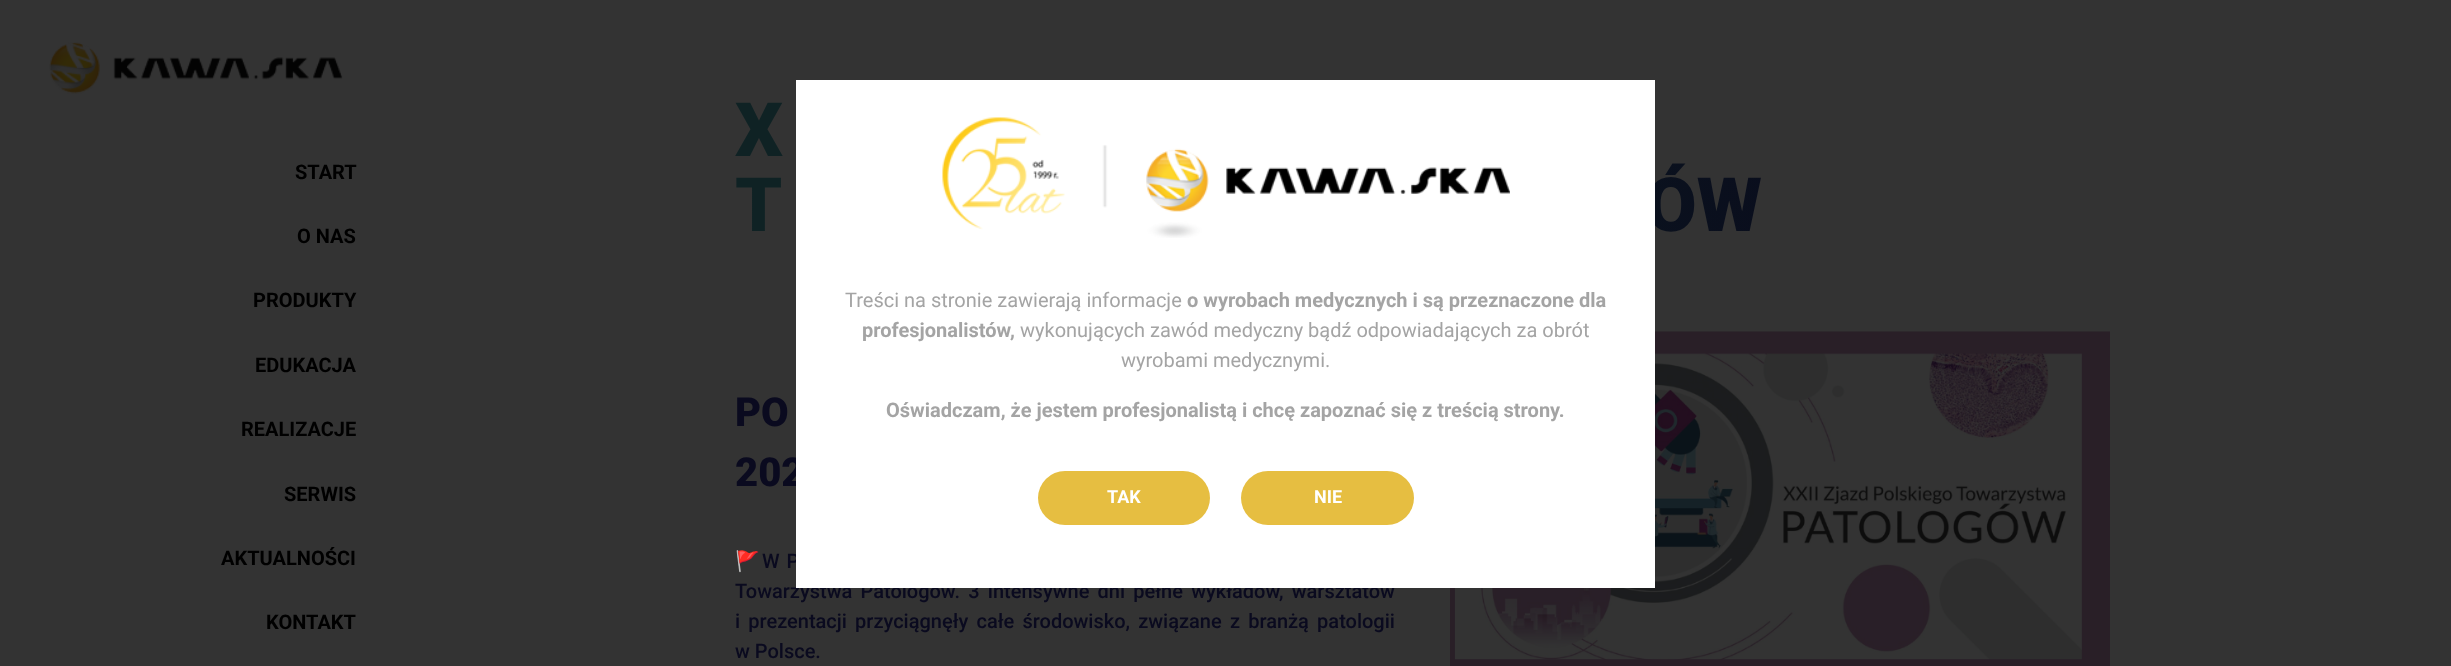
<!DOCTYPE html>
<meta charset="utf-8">
<style>body { margin: 0 } canvas { display: block }</style>
<canvas id="canvas" width="2451" height="666"></canvas>
<img id="img1" src="img_01.png" hidden>
<img id="img2" src="img_02.png" hidden>
<img id="img3" src="img_03.png" hidden>
<script>
window.onload = function () {
	const canvas = document.getElementById("canvas");
	const ctx = canvas.getContext("2d");
	ctx.miterLimit = 4;
	ctx.fontKerning = "normal";
	function txt(s, x, y) {
		ctx.fillText(s, x, y);
	}
	function fill(x, y, w, h) {
		ctx.fillRect(x, y, w, h);
	}
	function round(x, y, w, h, r) {
		ctx.beginPath();
		ctx.roundRect(x, y, w, h, r);
		ctx.fill();
	}
	function img(id, x, y, w, h) {
		ctx.drawImage(document.getElementById(id), x, y, w, h);
	}
	let gradient;

	ctx.fillStyle = "#333333";
	fill(0, 0, 2451, 666);
	img("img1", 49, 42, 294, 52);
	img("img2", 1450, 331, 660, 335);
	ctx.font = "bold 20px Roboto";
	ctx.fillStyle = "#000000";
	txt("START", 295, 179);
	txt("O NAS", 297, 243);
	txt("PRODUKTY", 253, 307);
	txt("EDUKACJA", 255, 372);
	txt("REALIZACJE", 241, 436);
	txt("SERWIS", 284, 501);
	txt("AKTUALNOŚCI", 221, 565);
	txt("KONTAKT", 266, 629);
	ctx.font = "900 75px Roboto";
	gradient = ctx.createLinearGradient(735, 169, 2110, 169);
	gradient.addColorStop(0.2, "#0F2224");
	gradient.addColorStop(0.8, "#090C1C");
	ctx.fillStyle = gradient;
	txt("X", 735, 156);
	txt("T", 735, 231);
	txt("ÓW", 1645, 231);
	ctx.font = "900 40px Roboto";
	ctx.fillStyle = "#0A0A1F";
	txt("PO", 735, 426);
	txt("202", 735, 486);
	ctx.font = "bold 20px Noto Color Emoji";
	txt("🚩", 735, 568);
	ctx.wordSpacing = "2px";
	ctx.font = "500 20px Roboto";
	txt("W P", 762, 568);
	ctx.wordSpacing = "3.25px";
	txt("Towarzystwa Patologów. 3 intensywne dni pełne wykładów, warsztatów", 735, 598);
	txt("i prezentacji przyciągnęły całe środowisko, związane z branżą patologii", 735, 628);
	ctx.wordSpacing = "0px";
	txt("w Polsce.", 735, 658);
	ctx.fillStyle = "#FFFFFF";
	fill(796, 80, 859, 508);
	img("img3", 942, 117, 568, 121);
	ctx.font = "20px Roboto";
	ctx.fillStyle = "#A4A4A4";
	txt("Treści na stronie zawierają informacje", 845, 307);
	ctx.font = "bold 20px Roboto";
	txt("o wyrobach medycznych i są przeznaczone dla", 1187, 307);
	txt("profesjonalistów,", 862, 337);
	ctx.font = "20px Roboto";
	txt("wykonujących zawód medyczny bądź odpowiadających za obrót", 1020, 337);
	txt("wyrobami medycznymi.", 1121, 367);
	ctx.font = "bold 20px Roboto";
	txt("Oświadczam, że jestem profesjonalistą i chcę zapoznać się z treścią strony.", 886, 417);
	ctx.fillStyle = "#E6BE41";
	round(1038, 471, 172, 54, 27);
	ctx.font = "bold 18px Roboto";
	ctx.fillStyle = "#FFFFFF";
	txt("TAK", 1107, 503);
	ctx.fillStyle = "#E6BE41";
	round(1241, 471, 173, 54, 27);
	ctx.fillStyle = "#FFFFFF";
	txt("NIE", 1314, 503);
};
</script>
